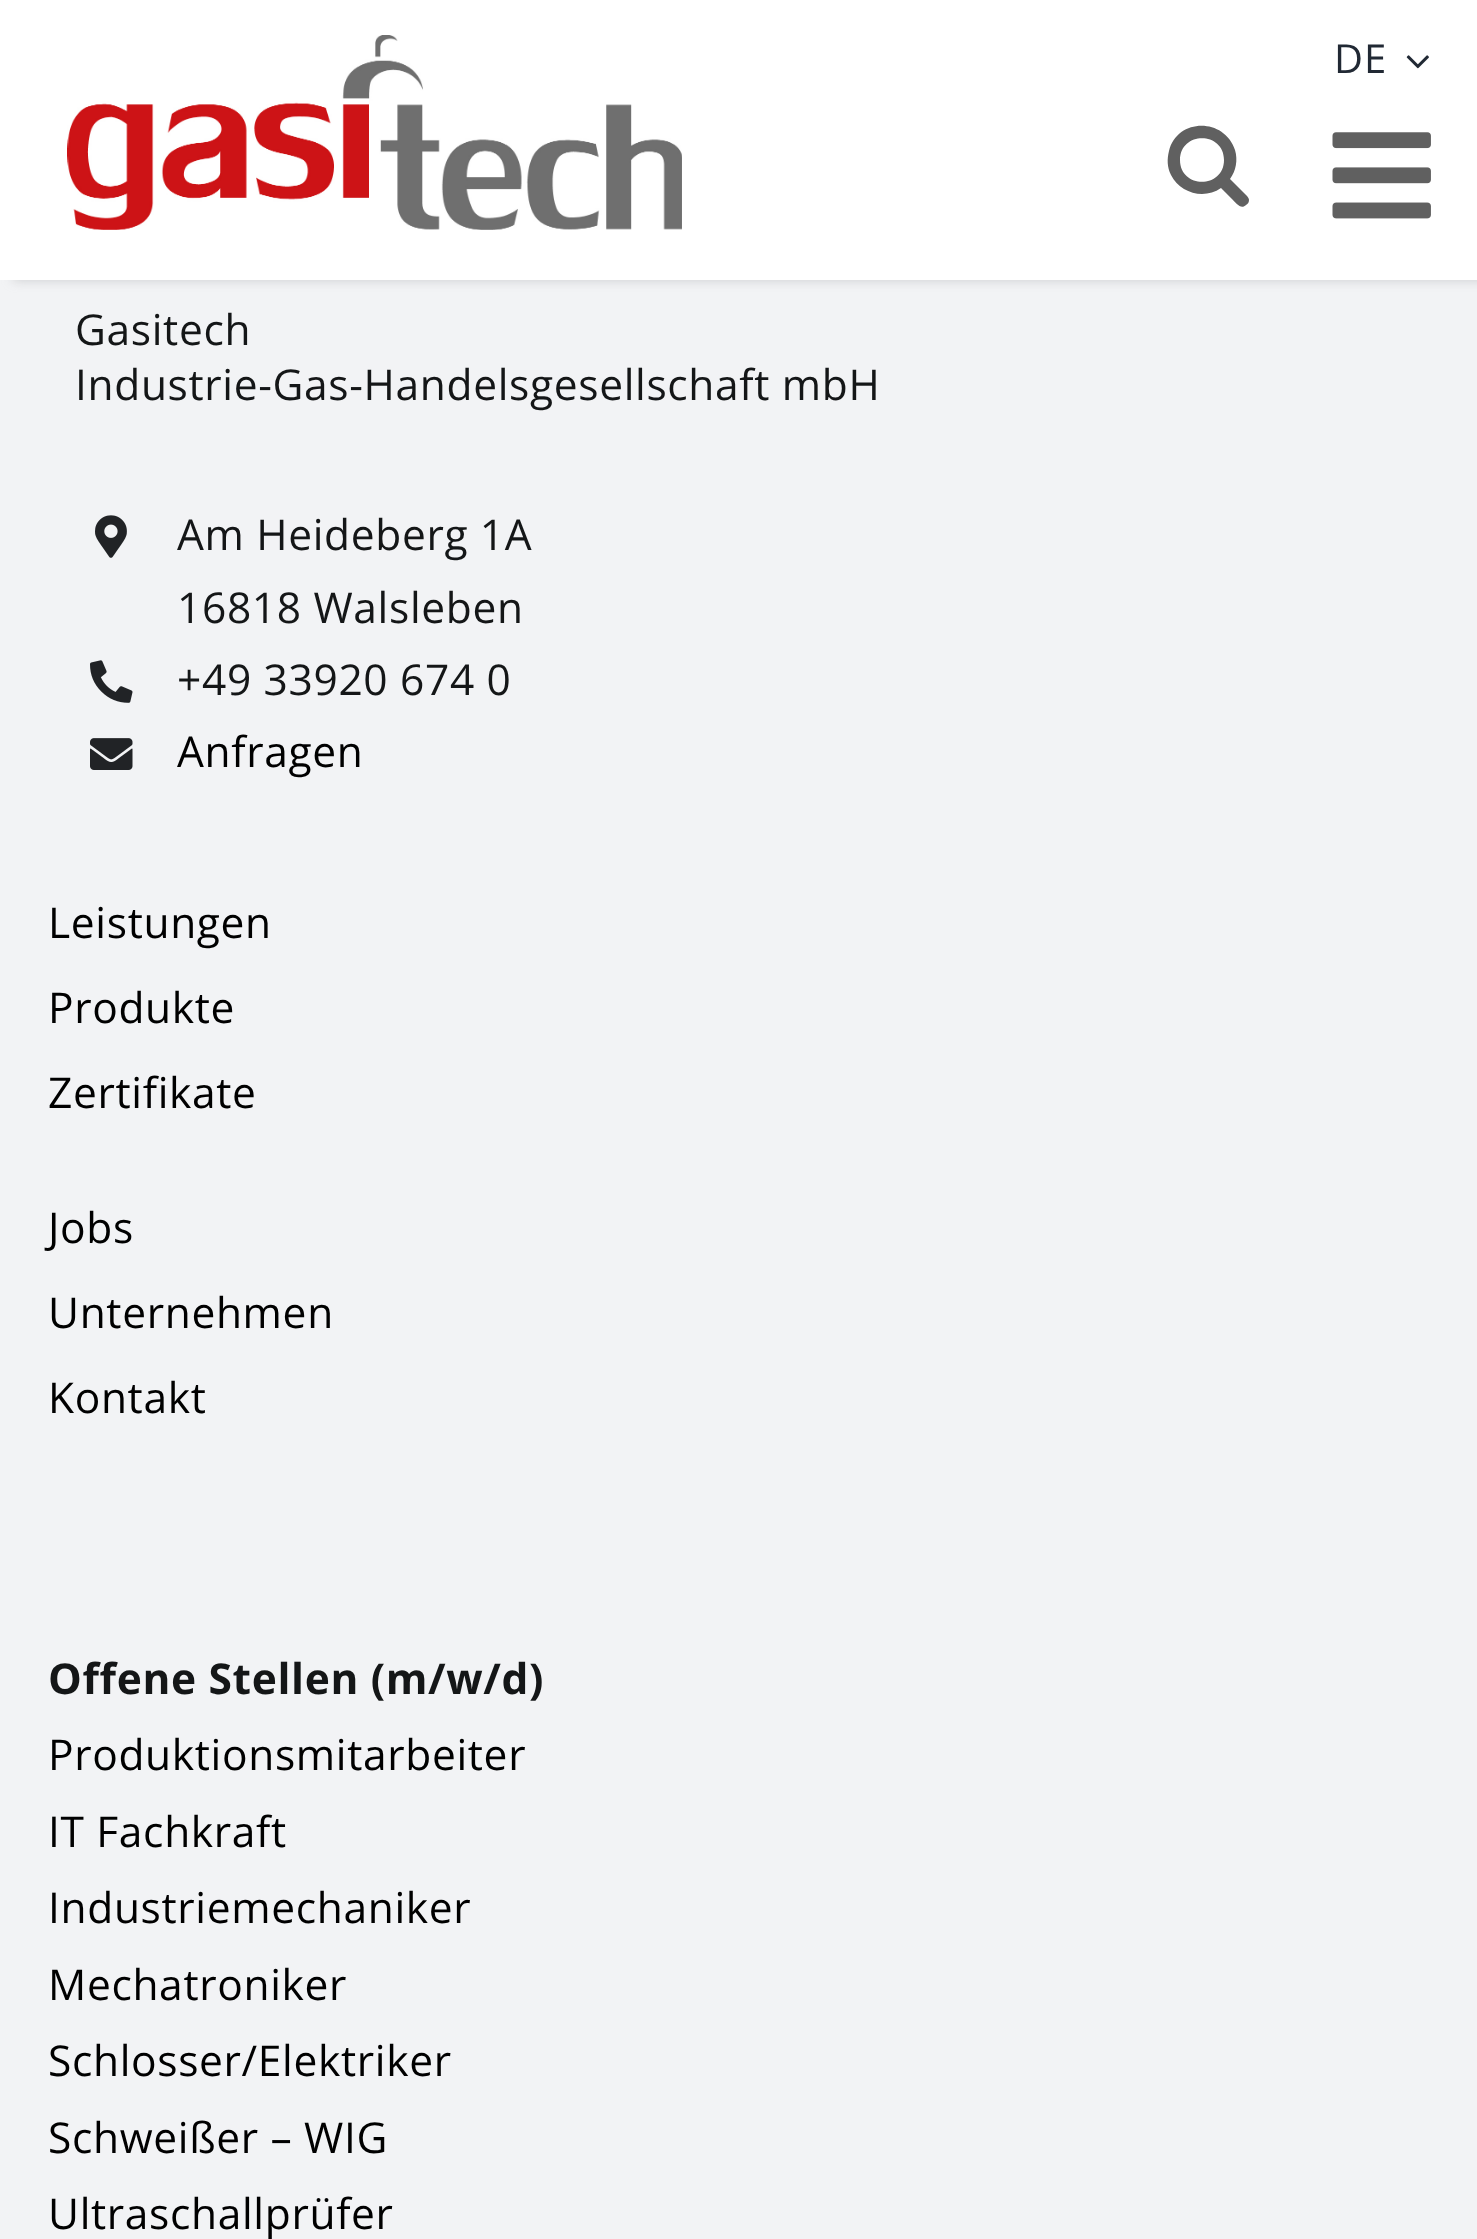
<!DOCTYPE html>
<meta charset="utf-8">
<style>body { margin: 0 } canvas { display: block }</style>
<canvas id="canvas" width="1477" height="2239"></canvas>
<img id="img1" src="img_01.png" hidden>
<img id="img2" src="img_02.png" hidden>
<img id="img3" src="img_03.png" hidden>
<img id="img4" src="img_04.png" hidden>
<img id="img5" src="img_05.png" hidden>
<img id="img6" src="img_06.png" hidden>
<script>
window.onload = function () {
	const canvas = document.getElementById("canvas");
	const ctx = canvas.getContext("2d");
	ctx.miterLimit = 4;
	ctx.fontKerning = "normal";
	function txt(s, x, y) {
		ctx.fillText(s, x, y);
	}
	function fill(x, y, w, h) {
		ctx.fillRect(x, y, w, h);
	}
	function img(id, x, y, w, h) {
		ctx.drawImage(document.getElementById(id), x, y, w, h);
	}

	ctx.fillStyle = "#F2F3F5";
	fill(0, 0, 1477, 2239);
	ctx.fillStyle = "rgba(167, 168, 170, 0.51)";
	ctx.filter = "blur(6px)";
	ctx.beginPath();
	ctx.rect(13, 0, 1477, 280);
	ctx.fill();
	ctx.filter = "none";
	ctx.fillStyle = "#FFFFFF";
	fill(0, 0, 1477, 280);
	img("img1", 67, 35, 615, 195);
	img("img2", 1406, 55, 23, 14);
	img("img3", 1332, 132, 99, 87);
	ctx.fillStyle = "#606060";
	ctx.beginPath();
	ctx.moveTo(1224, 160);
	ctx.bezierCurveTo(1224, 131, 1180, 131, 1180, 160);
	ctx.bezierCurveTo(1180, 189, 1224, 189, 1224, 160);
	ctx.closePath();
	ctx.moveTo(1249, 200);
	ctx.bezierCurveTo(1249, 202, 1248, 204, 1246, 205);
	ctx.bezierCurveTo(1241, 210, 1236, 203, 1232, 199);
	ctx.lineTo(1221, 188);
	ctx.bezierCurveTo(1204, 200, 1180, 193, 1171, 175);
	ctx.bezierCurveTo(1167, 167, 1167, 159, 1169, 151);
	ctx.bezierCurveTo(1177, 118, 1224, 117, 1235, 150);
	ctx.bezierCurveTo(1238, 160, 1236, 171, 1230, 179);
	ctx.lineTo(1247, 196);
	ctx.bezierCurveTo(1248, 197, 1249, 199, 1249, 200);
	ctx.closePath();
	ctx.fill();
	img("img4", 95, 515, 32, 43);
	img("img5", 90, 660, 43, 43);
	img("img6", 90, 738, 43, 32);
	ctx.letterSpacing = "1px";
	ctx.font = "40px Open Sans";
	ctx.fillStyle = "#212934";
	txt("DE", 1334, 73);
	ctx.letterSpacing = "0.65px";
	ctx.font = "42.5px Open Sans";
	ctx.fillStyle = "#141617";
	txt("Gasitech", 75, 345);
	txt("Industrie-Gas-Handelsgesellschaft mbH", 75, 400);
	txt("Am Heideberg 1A", 177, 550);
	txt("16818 Walsleben", 177, 623);
	txt("+49 33920 674 0", 177, 695);
	ctx.fillStyle = "#000000";
	txt("Anfragen", 177, 767);
	txt("Leistungen", 48, 938);
	txt("Produkte", 48, 1023);
	txt("Zertifikate", 48, 1108);
	txt("Jobs", 48, 1243);
	txt("Unternehmen", 48, 1328);
	txt("Kontakt", 48, 1413);
	ctx.font = "bold 42.5px Open Sans";
	ctx.fillStyle = "#141617";
	txt("Offene Stellen (m/w/d)", 48, 1694);
	ctx.font = "42.5px Open Sans";
	ctx.fillStyle = "#000000";
	txt("Produktionsmitarbeiter", 48, 1770);
	txt("IT Fachkraft", 48, 1847);
	txt("Industriemechaniker", 48, 1923);
	txt("Mechatroniker", 48, 2000);
	txt("Schlosser/Elektriker", 48, 2076);
	txt("Schweißer – WIG", 48, 2153);
	txt("Ultraschallprüfer", 48, 2229);
};
</script>
